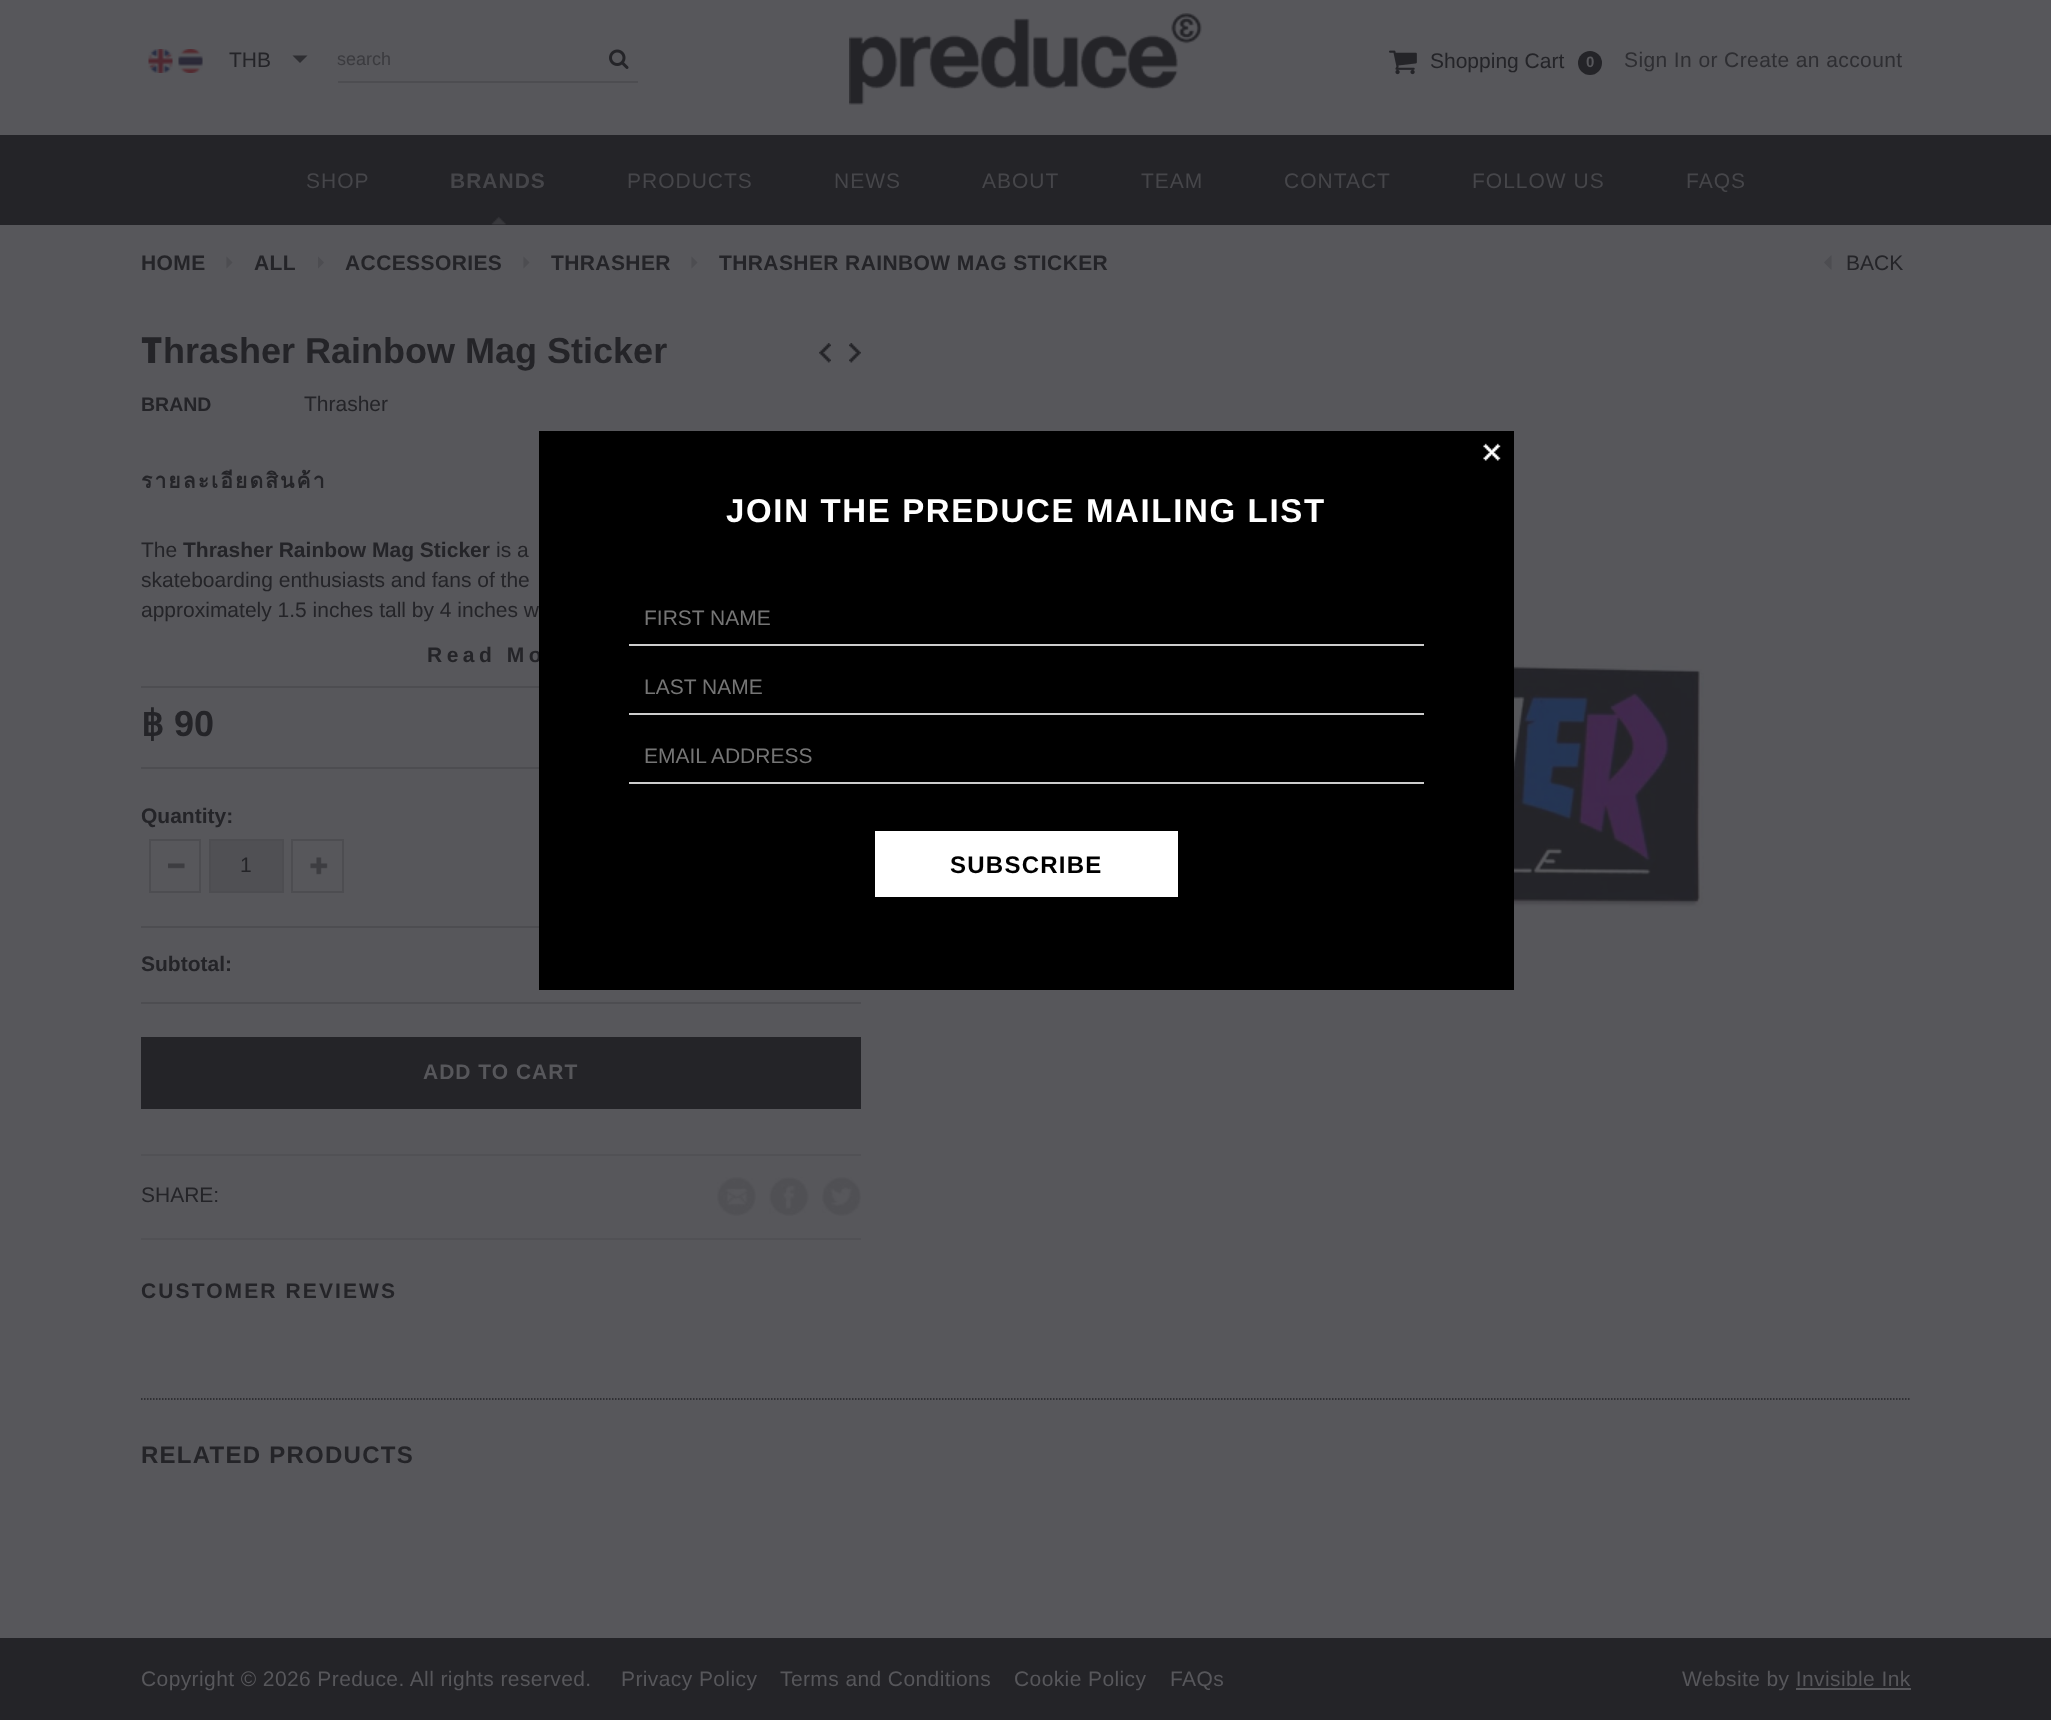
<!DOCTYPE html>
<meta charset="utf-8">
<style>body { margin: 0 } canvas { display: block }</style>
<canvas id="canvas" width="2051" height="1720"></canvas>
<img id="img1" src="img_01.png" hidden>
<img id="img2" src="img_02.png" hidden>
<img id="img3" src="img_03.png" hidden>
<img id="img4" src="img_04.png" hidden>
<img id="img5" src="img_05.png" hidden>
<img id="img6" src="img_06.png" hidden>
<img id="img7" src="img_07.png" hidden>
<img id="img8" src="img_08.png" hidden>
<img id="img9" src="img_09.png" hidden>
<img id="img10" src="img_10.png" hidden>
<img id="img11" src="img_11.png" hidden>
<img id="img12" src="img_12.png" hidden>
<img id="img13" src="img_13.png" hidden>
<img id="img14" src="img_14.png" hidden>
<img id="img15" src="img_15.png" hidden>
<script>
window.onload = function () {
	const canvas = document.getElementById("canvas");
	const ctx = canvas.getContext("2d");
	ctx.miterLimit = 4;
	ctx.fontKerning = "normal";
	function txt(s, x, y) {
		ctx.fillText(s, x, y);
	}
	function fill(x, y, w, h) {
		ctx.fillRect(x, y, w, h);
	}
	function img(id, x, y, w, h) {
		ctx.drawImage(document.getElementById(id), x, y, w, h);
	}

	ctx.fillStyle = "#57575B";
	fill(0, 0, 2051, 1720);
	img("img1", 148, 49, 25, 24);
	img("img2", 178, 49, 25, 24);
	ctx.fillStyle = "#2E2E32";
	ctx.beginPath();
	ctx.moveTo(292.5, 55.5);
	ctx.lineTo(307.5, 55.5);
	ctx.lineTo(300, 63);
	ctx.closePath();
	ctx.fill();
	ctx.fillStyle = "#4D4D51";
	fill(338, 81, 300, 2);
	img("img3", 609, 49, 20, 20);
	img("img4", 849, 13, 353, 92);
	img("img5", 1389, 50, 28, 25);
	ctx.fillStyle = "#242428";
	ctx.beginPath();
	ctx.arc(1590, 63, 12, 0, Math.PI * 2);
	ctx.fill();
	fill(0, 135, 2051, 90);
	img("img6", 491, 216, 16, 9);
	ctx.fillStyle = "#4D4D51";
	ctx.beginPath();
	ctx.moveTo(1831.5, 255);
	ctx.lineTo(1831.5, 270);
	ctx.lineTo(1824, 262.5);
	ctx.closePath();
	ctx.fill();
	img("img7", 819, 343, 12, 20);
	img("img8", 849, 343, 12, 20);
	fill(141, 686, 398, 2);
	fill(141, 767, 398, 2);
	img("img9", 168, 863, 17, 6);
	ctx.strokeStyle = "#4D4D51";
	ctx.lineWidth = 2;
	ctx.strokeRect(150, 840, 50, 52);
	ctx.fillStyle = "#505054";
	ctx.beginPath();
	ctx.rect(210, 840, 73, 52);
	ctx.fill();
	ctx.stroke();
	img("img10", 310, 857, 18, 18);
	ctx.strokeRect(292, 840, 51, 52);
	ctx.fillStyle = "#4D4D51";
	fill(141, 926, 398, 2);
	fill(141, 1002, 720, 2);
	ctx.fillStyle = "#242428";
	fill(141, 1037, 720, 72);
	ctx.fillStyle = "#515155";
	fill(141, 1154, 720, 2);
	fill(141, 1238, 720, 2);
	img("img11", 717, 1177, 39, 39);
	img("img12", 769, 1177, 40, 39);
	img("img13", 822, 1177, 39, 39);
	img("img14", 1514, 664, 190, 246);
	ctx.beginPath();
	ctx.moveTo(141, 1399);
	ctx.lineTo(1911, 1399);
	ctx.strokeStyle = "#242428";
	ctx.lineWidth = 1.5;
	ctx.setLineDash([1.5, 1.5]);
	ctx.stroke();
	ctx.fillStyle = "#4D4D51";
	ctx.beginPath();
	ctx.moveTo(226.5, 268.5);
	ctx.lineTo(226.5, 256.5);
	ctx.lineTo(232.5, 262.5);
	ctx.closePath();
	ctx.fill();
	ctx.beginPath();
	ctx.moveTo(318, 268.5);
	ctx.lineTo(318, 256.5);
	ctx.lineTo(324, 262.5);
	ctx.closePath();
	ctx.fill();
	ctx.beginPath();
	ctx.moveTo(523.5, 268.5);
	ctx.lineTo(523.5, 256.5);
	ctx.lineTo(529.5, 262.5);
	ctx.closePath();
	ctx.fill();
	ctx.beginPath();
	ctx.moveTo(691.5, 268.5);
	ctx.lineTo(691.5, 256.5);
	ctx.lineTo(697.5, 262.5);
	ctx.closePath();
	ctx.fill();
	ctx.fillStyle = "#242428";
	fill(0, 1638, 2051, 82);
	ctx.fillStyle = "#57575B";
	fill(1796, 1688, 115, 2);
	ctx.font = "21px Liberation Sans";
	ctx.fillStyle = "#242428";
	txt("THB", 229, 67);
	ctx.font = "18px Liberation Sans";
	ctx.fillStyle = "#3B3B3F";
	txt("search", 337, 65);
	ctx.font = "21px Liberation Sans";
	ctx.fillStyle = "#242428";
	txt("Shopping Cart", 1430, 68);
	ctx.font = "bold 15px Liberation Sans";
	ctx.fillStyle = "#57575B";
	txt("0", 1586, 67);
	ctx.letterSpacing = "0.4px";
	ctx.font = "21px Liberation Sans";
	ctx.fillStyle = "#2E2E32";
	txt("Sign In or Create an account", 1624, 67);
	ctx.letterSpacing = "1px";
	ctx.fillStyle = "#46464A";
	txt("SHOP", 306, 188);
	ctx.font = "bold 21px Liberation Sans";
	txt("BRANDS", 450, 188);
	ctx.font = "21px Liberation Sans";
	txt("PRODUCTS", 627, 188);
	txt("NEWS", 834, 188);
	txt("ABOUT", 982, 188);
	txt("TEAM", 1141, 188);
	txt("CONTACT", 1284, 188);
	txt("FOLLOW US", 1472, 188);
	txt("FAQS", 1686, 188);
	ctx.letterSpacing = "0px";
	ctx.fillStyle = "#242428";
	txt("BACK", 1846, 270);
	ctx.font = "900 36px Noto Sans";
	txt("T", 141, 363);
	ctx.font = "bold 36px Liberation Sans";
	txt("hrasher Rainbow Mag Sticker", 163, 363);
	ctx.font = "bold 19.5px Liberation Sans";
	txt("BRAND", 141, 411);
	ctx.font = "21px Liberation Sans";
	txt("Thrasher", 304, 411);
	ctx.letterSpacing = "2.1px";
	ctx.font = "bold 21px Loma";
	txt("รายละเอียดสินค้า", 141, 488);
	ctx.letterSpacing = "0px";
	ctx.font = "21px Liberation Sans";
	txt("The", 141, 557);
	ctx.font = "bold 21px Liberation Sans";
	txt("Thrasher Rainbow Mag Sticker", 183, 557);
	ctx.font = "21px Liberation Sans";
	txt("is a", 496, 557);
	txt("skateboarding enthusiasts and fans of the", 141, 587);
	txt("approximately 1.5 inches tall by 4 inches w", 141, 617);
	ctx.letterSpacing = "4.5px";
	ctx.font = "bold 21px Liberation Sans";
	txt("Read Mo", 427, 662);
	ctx.letterSpacing = "0px";
	ctx.font = "bold 36px DejaVu Sans";
	txt("฿", 141, 736);
	ctx.font = "bold 36px Liberation Sans";
	txt("90", 174, 736);
	ctx.font = "bold 21px Liberation Sans";
	txt("Quantity:", 141, 823);
	ctx.font = "21px Liberation Sans";
	txt("1", 240, 872);
	ctx.font = "bold 21px Liberation Sans";
	txt("Subtotal:", 141, 971);
	ctx.letterSpacing = "1px";
	ctx.fillStyle = "#57575B";
	txt("ADD TO CART", 423, 1079);
	ctx.letterSpacing = "0px";
	ctx.font = "21px Liberation Sans";
	ctx.fillStyle = "#242428";
	txt("SHARE:", 141, 1202);
	ctx.letterSpacing = "2.1px";
	ctx.font = "bold 21px Liberation Sans";
	txt("CUSTOMER REVIEWS", 141, 1298);
	ctx.letterSpacing = "1.25px";
	ctx.font = "bold 24px Liberation Sans";
	txt("RELATED PRODUCTS", 141, 1463);
	ctx.letterSpacing = "0.4px";
	ctx.font = "bold 21px Liberation Sans";
	txt("HOME", 141, 270);
	txt("ALL", 254, 270);
	txt("ACCESSORIES", 345, 270);
	txt("THRASHER", 551, 270);
	txt("THRASHER RAINBOW MAG STICKER", 719, 270);
	ctx.fillStyle = "#000000";
	fill(539, 431, 975, 559);
	img("img15", 1483, 443, 18, 18);
	ctx.letterSpacing = "1.65px";
	ctx.font = "bold 33px Liberation Sans";
	ctx.fillStyle = "#FFFFFF";
	txt("JOIN THE PREDUCE MAILING LIST", 726, 522);
	ctx.fillStyle = "#CCCCCC";
	fill(629, 644, 795, 2);
	ctx.letterSpacing = "0px";
	ctx.font = "21px Liberation Sans";
	ctx.fillStyle = "#757575";
	txt("FIRST NAME", 644, 625);
	ctx.fillStyle = "#CCCCCC";
	fill(629, 713, 795, 2);
	ctx.fillStyle = "#757575";
	txt("LAST NAME", 644, 694);
	ctx.fillStyle = "#CCCCCC";
	fill(629, 782, 795, 2);
	ctx.fillStyle = "#757575";
	txt("EMAIL ADDRESS", 644, 763);
	ctx.fillStyle = "#FFFFFF";
	fill(875, 831, 303, 66);
	ctx.letterSpacing = "1.25px";
	ctx.font = "bold 24px Liberation Sans";
	ctx.fillStyle = "#000000";
	txt("SUBSCRIBE", 950, 873);
	ctx.letterSpacing = "0.4px";
	ctx.font = "21px Liberation Sans";
	ctx.fillStyle = "#57575B";
	txt("Copyright © 2026 Preduce. All rights reserved.", 141, 1686);
	txt("Privacy Policy", 621, 1686);
	txt("Terms and Conditions", 780, 1686);
	txt("Cookie Policy", 1014, 1686);
	txt("FAQs", 1170, 1686);
	txt("Website by Invisible Ink", 1682, 1686);
};
</script>
